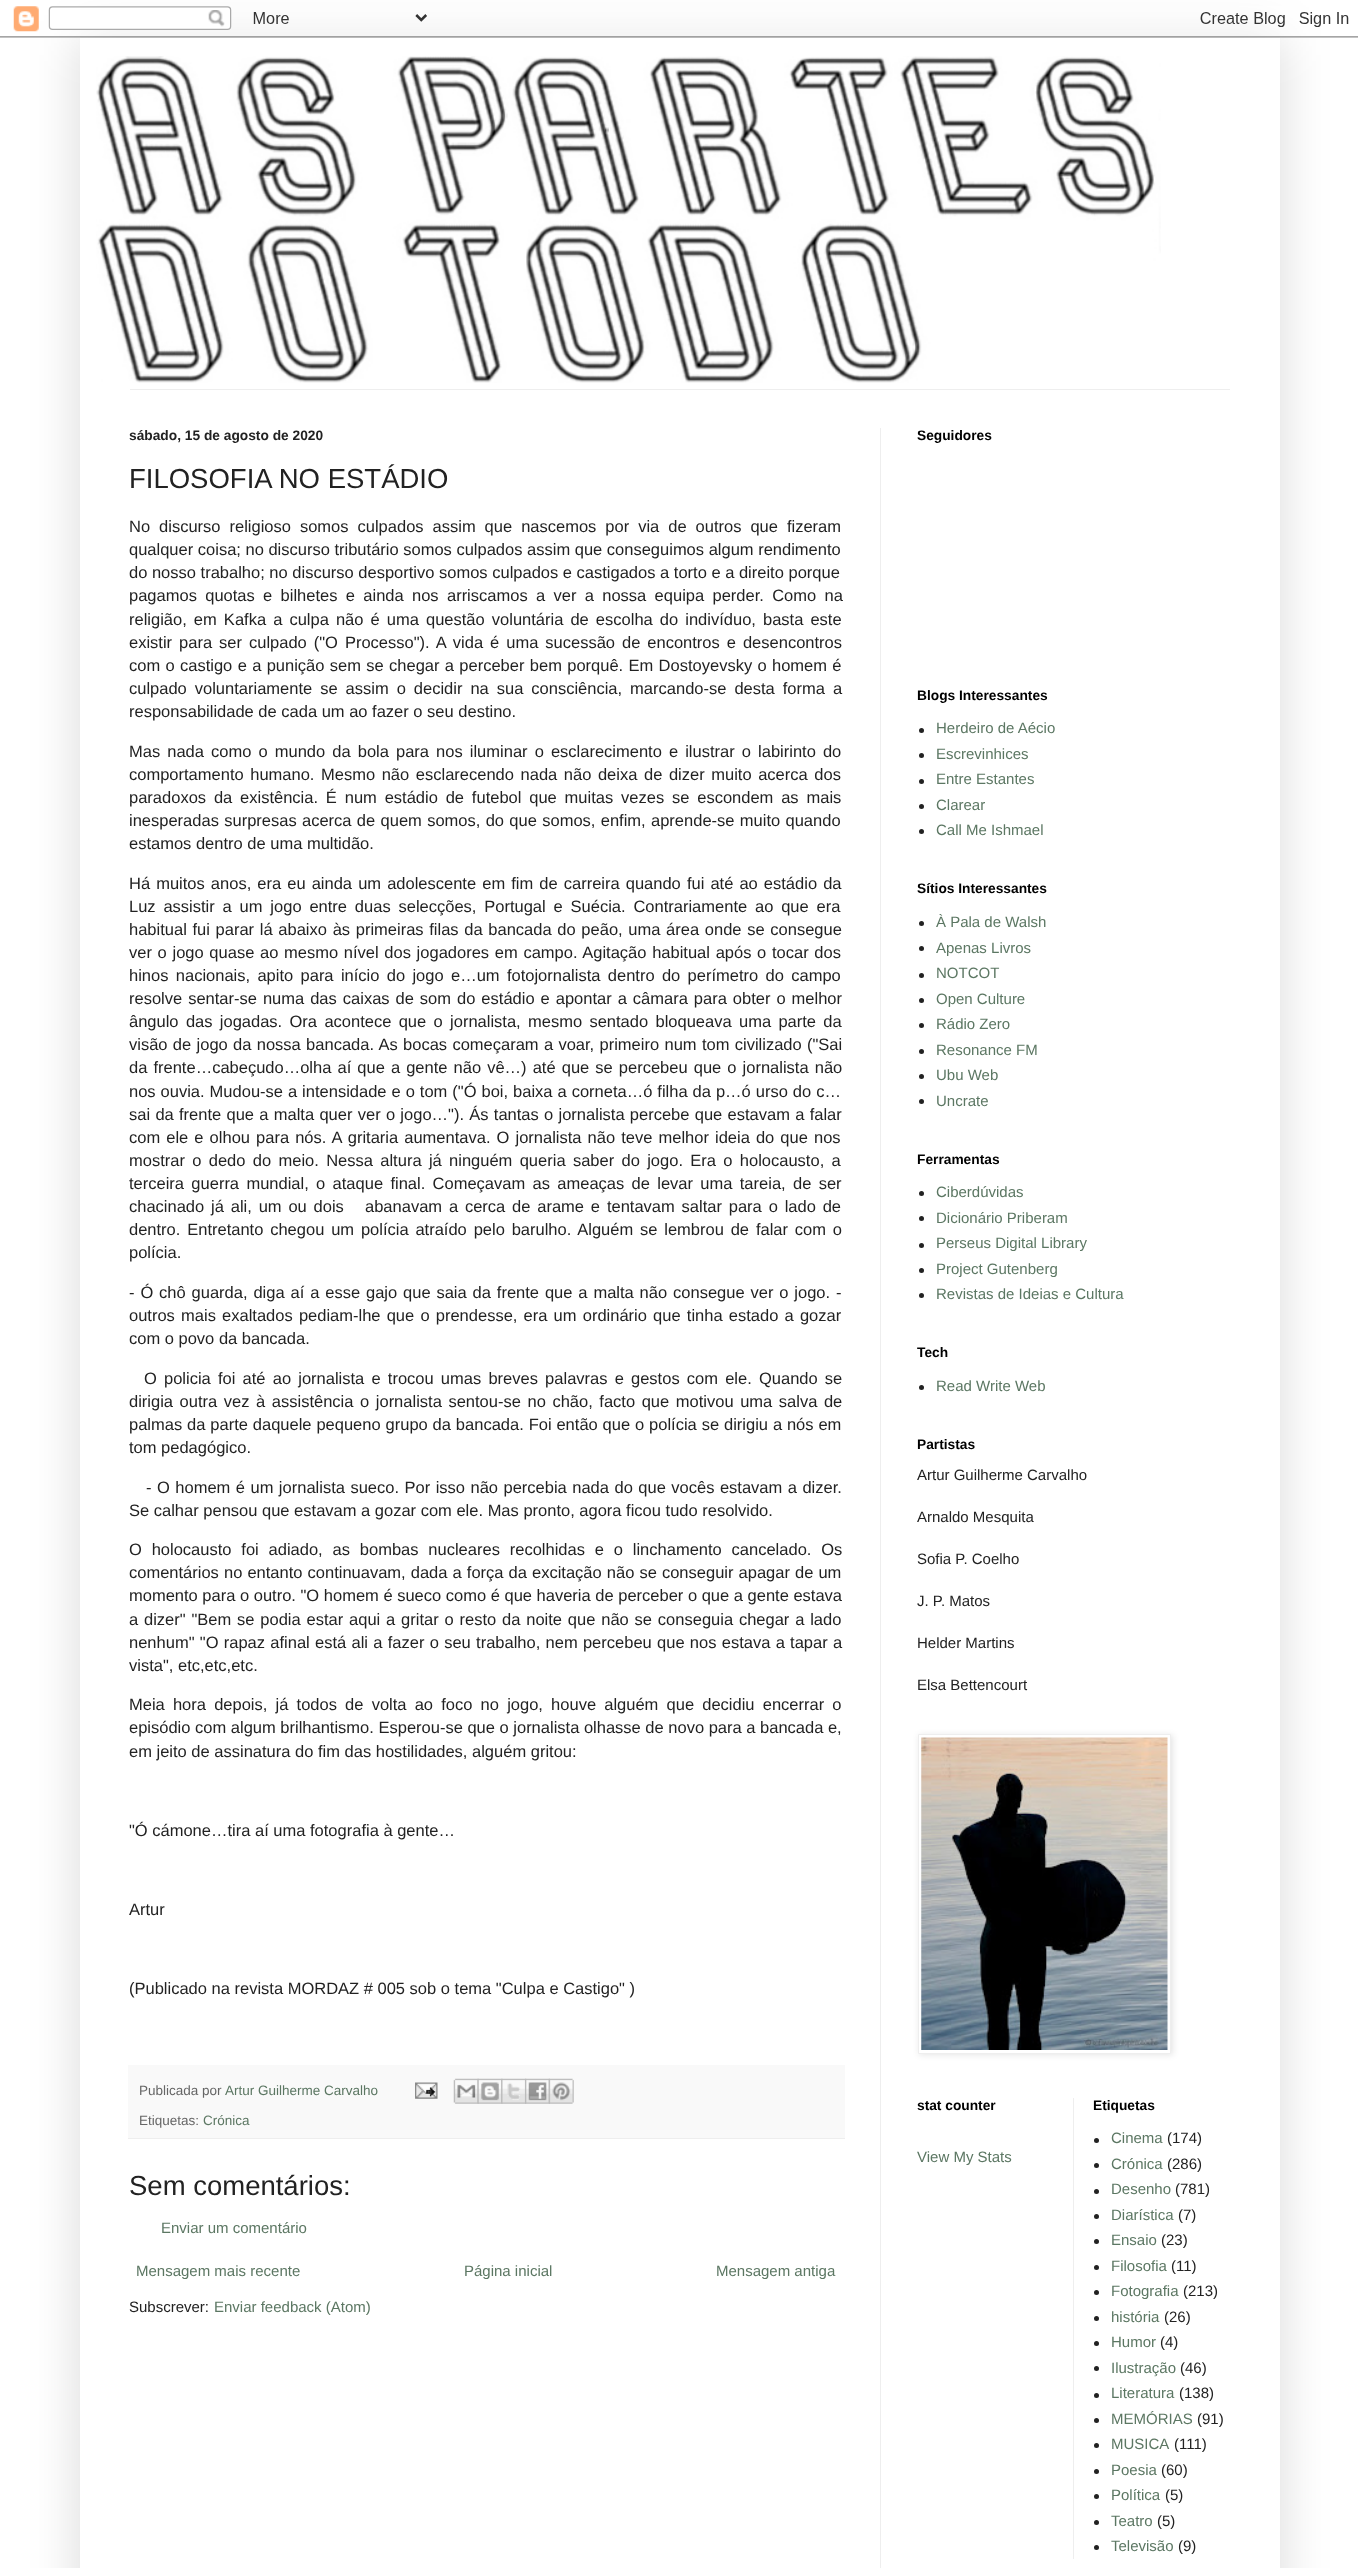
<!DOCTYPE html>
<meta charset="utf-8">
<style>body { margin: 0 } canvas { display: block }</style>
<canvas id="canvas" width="1358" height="2568"></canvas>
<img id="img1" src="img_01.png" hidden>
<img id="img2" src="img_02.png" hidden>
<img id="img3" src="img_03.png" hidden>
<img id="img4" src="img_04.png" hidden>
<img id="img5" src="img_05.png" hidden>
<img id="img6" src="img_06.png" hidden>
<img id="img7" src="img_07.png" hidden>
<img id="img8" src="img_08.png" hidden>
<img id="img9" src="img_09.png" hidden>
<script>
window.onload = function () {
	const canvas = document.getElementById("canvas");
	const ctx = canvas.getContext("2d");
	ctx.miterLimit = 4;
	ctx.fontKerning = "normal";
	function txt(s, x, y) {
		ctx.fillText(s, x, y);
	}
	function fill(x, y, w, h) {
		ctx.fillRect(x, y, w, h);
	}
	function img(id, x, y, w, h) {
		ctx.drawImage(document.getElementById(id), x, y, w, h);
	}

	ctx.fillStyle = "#FFFFFF";
	fill(0, 0, 1358, 2568);
	ctx.save();
	ctx.beginPath();
	ctx.moveTo(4, 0);
	ctx.lineTo(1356, 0);
	ctx.lineTo(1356, 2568);
	ctx.lineTo(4, 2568);
	ctx.closePath();
	ctx.moveTo(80, 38);
	ctx.lineTo(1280, 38);
	ctx.lineTo(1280, 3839);
	ctx.lineTo(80, 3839);
	ctx.closePath();
	ctx.clip("evenodd");
	ctx.fillStyle = "rgba(0, 0, 0, 0.15)";
	ctx.filter = "blur(25px)";
	ctx.beginPath();
	ctx.rect(80, 38, 1200, 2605);
	ctx.fill();
	ctx.filter = "none";
	ctx.restore();
	img("img1", 0, 6, 1358, 32);
	img("img2", 96, 56, 1065, 327);
	ctx.fillStyle = "#EEEEEE";
	fill(130, 389, 1100, 1);
	fill(880, 428, 1, 2140);
	ctx.fillStyle = "#F9F9F9";
	fill(128, 2065, 717, 73);
	ctx.fillStyle = "#EEEEEE";
	fill(128, 2138, 717, 1);
	img("img3", 415, 2082, 23, 17);
	img("img4", 453, 2078, 26, 26);
	img("img5", 477, 2078, 26, 26);
	img("img6", 501, 2078, 26, 26);
	img("img7", 525, 2078, 25, 26);
	img("img8", 548, 2078, 26, 26);
	ctx.fillStyle = "#222222";
	ctx.beginPath();
	ctx.arc(921.5, 730.5, 2.5, 0, Math.PI * 2);
	ctx.fill();
	ctx.beginPath();
	ctx.arc(921.5, 755.5, 2.5, 0, Math.PI * 2);
	ctx.fill();
	ctx.beginPath();
	ctx.arc(921.5, 781.5, 2.5, 0, Math.PI * 2);
	ctx.fill();
	ctx.beginPath();
	ctx.arc(921.5, 806.5, 2.5, 0, Math.PI * 2);
	ctx.fill();
	ctx.beginPath();
	ctx.arc(921.5, 831.5, 2.5, 0, Math.PI * 2);
	ctx.fill();
	ctx.beginPath();
	ctx.arc(921.5, 923.5, 2.5, 0, Math.PI * 2);
	ctx.fill();
	ctx.beginPath();
	ctx.arc(921.5, 948.5, 2.5, 0, Math.PI * 2);
	ctx.fill();
	ctx.beginPath();
	ctx.arc(921.5, 975.5, 2.5, 0, Math.PI * 2);
	ctx.fill();
	ctx.beginPath();
	ctx.arc(921.5, 1000.5, 2.5, 0, Math.PI * 2);
	ctx.fill();
	ctx.beginPath();
	ctx.arc(921.5, 1025.5, 2.5, 0, Math.PI * 2);
	ctx.fill();
	ctx.beginPath();
	ctx.arc(921.5, 1051.5, 2.5, 0, Math.PI * 2);
	ctx.fill();
	ctx.beginPath();
	ctx.arc(921.5, 1076.5, 2.5, 0, Math.PI * 2);
	ctx.fill();
	ctx.beginPath();
	ctx.arc(921.5, 1101.5, 2.5, 0, Math.PI * 2);
	ctx.fill();
	ctx.beginPath();
	ctx.arc(921.5, 1193.5, 2.5, 0, Math.PI * 2);
	ctx.fill();
	ctx.beginPath();
	ctx.arc(921.5, 1218.5, 2.5, 0, Math.PI * 2);
	ctx.fill();
	ctx.beginPath();
	ctx.arc(921.5, 1245.5, 2.5, 0, Math.PI * 2);
	ctx.fill();
	ctx.beginPath();
	ctx.arc(921.5, 1270.5, 2.5, 0, Math.PI * 2);
	ctx.fill();
	ctx.beginPath();
	ctx.arc(921.5, 1295.5, 2.5, 0, Math.PI * 2);
	ctx.fill();
	ctx.beginPath();
	ctx.arc(921.5, 1387.5, 2.5, 0, Math.PI * 2);
	ctx.fill();
	ctx.fillStyle = "rgba(0, 0, 0, 0.1)";
	ctx.filter = "blur(3px)";
	ctx.beginPath();
	ctx.rect(919, 1735, 254, 320);
	ctx.fill();
	ctx.filter = "none";
	ctx.fillStyle = "#FFFFFF";
	ctx.beginPath();
	ctx.rect(918.5, 1734.5, 252, 319);
	ctx.fill();
	ctx.strokeStyle = "#EEEEEE";
	ctx.stroke();
	img("img9", 921, 1737, 247, 313);
	ctx.fillStyle = "#EEEEEE";
	fill(1073, 2098, 1, 461);
	ctx.fillStyle = "#222222";
	ctx.beginPath();
	ctx.arc(1096.5, 2140.5, 2.5, 0, Math.PI * 2);
	ctx.fill();
	ctx.beginPath();
	ctx.arc(1096.5, 2165.5, 2.5, 0, Math.PI * 2);
	ctx.fill();
	ctx.beginPath();
	ctx.arc(1096.5, 2191.5, 2.5, 0, Math.PI * 2);
	ctx.fill();
	ctx.beginPath();
	ctx.arc(1096.5, 2216.5, 2.5, 0, Math.PI * 2);
	ctx.fill();
	ctx.beginPath();
	ctx.arc(1096.5, 2241.5, 2.5, 0, Math.PI * 2);
	ctx.fill();
	ctx.beginPath();
	ctx.arc(1096.5, 2267.5, 2.5, 0, Math.PI * 2);
	ctx.fill();
	ctx.beginPath();
	ctx.arc(1096.5, 2292.5, 2.5, 0, Math.PI * 2);
	ctx.fill();
	ctx.beginPath();
	ctx.arc(1096.5, 2318.5, 2.5, 0, Math.PI * 2);
	ctx.fill();
	ctx.beginPath();
	ctx.arc(1096.5, 2343.5, 2.5, 0, Math.PI * 2);
	ctx.fill();
	ctx.beginPath();
	ctx.arc(1096.5, 2368.5, 2.5, 0, Math.PI * 2);
	ctx.fill();
	ctx.beginPath();
	ctx.arc(1096.5, 2395.5, 2.5, 0, Math.PI * 2);
	ctx.fill();
	ctx.beginPath();
	ctx.arc(1096.5, 2420.5, 2.5, 0, Math.PI * 2);
	ctx.fill();
	ctx.beginPath();
	ctx.arc(1096.5, 2445.5, 2.5, 0, Math.PI * 2);
	ctx.fill();
	ctx.beginPath();
	ctx.arc(1096.5, 2471.5, 2.5, 0, Math.PI * 2);
	ctx.fill();
	ctx.beginPath();
	ctx.arc(1096.5, 2496.5, 2.5, 0, Math.PI * 2);
	ctx.fill();
	ctx.beginPath();
	ctx.arc(1096.5, 2522.5, 2.5, 0, Math.PI * 2);
	ctx.fill();
	ctx.beginPath();
	ctx.arc(1096.5, 2547.5, 2.5, 0, Math.PI * 2);
	ctx.fill();
	ctx.font = "bold 13.75px Liberation Sans";
	txt("sábado, 15 de agosto de 2020", 129, 440);
	ctx.font = "27.5px Liberation Sans";
	txt("FILOSOFIA NO ESTÁDIO", 129, 488);
	ctx.wordSpacing = "4.4px";
	ctx.font = "16.5px Liberation Sans";
	txt("No discurso religioso somos culpados assim que nascemos por via de outros que fizeram", 129, 532);
	ctx.wordSpacing = "0px";
	txt("qualquer coisa; no discurso tributário somos culpados assim que conseguimos algum rendimento", 129, 555);
	txt("do nosso trabalho; no discurso desportivo somos culpados e castigados a torto e a direito porque", 129, 578);
	ctx.wordSpacing = "3.75px";
	txt("pagamos quotas e bilhetes e ainda nos arriscamos a ver a nossa equipa perder. Como na", 129, 601);
	ctx.wordSpacing = "2.5px";
	txt("religião, em Kafka a culpa não é uma questão voluntária de escolha do indivíduo, basta este", 129, 625);
	ctx.wordSpacing = "2.4px";
	txt("existir para ser culpado (\"O Processo\"). A vida é uma sucessão de encontros e desencontros", 129, 648);
	ctx.wordSpacing = "0.75px";
	txt("com o castigo e a punição sem se chegar a perceber bem porquê. Em Dostoyevsky o homem é", 129, 671);
	ctx.wordSpacing = "3.4px";
	txt("culpado voluntariamente se assim o decidir na sua consciência, marcando-se desta forma a", 129, 694);
	ctx.wordSpacing = "0px";
	txt("responsabilidade de cada um ao fazer o seu destino.", 129, 717);
	ctx.wordSpacing = "2.5px";
	txt("Mas nada como o mundo da bola para nos iluminar o esclarecimento e ilustrar o labirinto do", 129, 757);
	ctx.wordSpacing = "2px";
	txt("comportamento humano. Mesmo não esclarecendo nada não deixa de dizer muito acerca dos", 129, 780);
	ctx.wordSpacing = "3.25px";
	txt("paradoxos da existência. É num estádio de futebol que muitas vezes se escondem as mais", 129, 803);
	ctx.wordSpacing = "0.75px";
	txt("inesperadas surpresas acerca de quem somos, do que somos, enfim, aprende-se muito quando", 129, 826);
	ctx.wordSpacing = "0px";
	txt("estamos dentro de uma multidão.", 129, 849);
	ctx.wordSpacing = "1.5px";
	txt("Há muitos anos, era eu ainda um adolescente em fim de carreira quando fui até ao estádio da", 129, 889);
	ctx.wordSpacing = "3.25px";
	txt("Luz assistir a um jogo entre duas selecções, Portugal e Suécia. Contrariamente ao que era", 129, 912);
	ctx.wordSpacing = "1.1px";
	txt("habitual fui parar lá abaixo às primeiras filas da bancada do peão, uma área onde se consegue", 129, 935);
	txt("ver o jogo quase ao mesmo nível dos jogadores em campo. Agitação habitual após o tocar dos", 129, 958);
	ctx.wordSpacing = "2.75px";
	txt("hinos nacionais, apito para início do jogo e…um fotojornalista dentro do perímetro do campo", 129, 981);
	ctx.wordSpacing = "1.4px";
	txt("resolve sentar-se numa das caixas de som do estádio e apontar a câmara para obter o melhor", 129, 1004);
	ctx.wordSpacing = "2.75px";
	txt("ângulo das jogadas. Ora acontece que o jornalista, mesmo sentado bloqueava uma parte da", 129, 1027);
	ctx.wordSpacing = "0.75px";
	txt("visão de jogo da nossa bancada. As bocas começaram a voar, primeiro num tom civilizado (\"Sai", 129, 1050);
	ctx.wordSpacing = "1.5px";
	txt("da frente…cabeçudo…olha aí que a gente não vê…) até que se percebeu que o jornalista não", 129, 1073);
	ctx.wordSpacing = "0.4px";
	txt("nos ouvia. Mudou-se a intensidade e o tom (\"Ó boi, baixa a corneta…ó filha da p…ó urso do c…", 129, 1097);
	ctx.wordSpacing = "0.7px";
	txt("sai da frente que a malta quer ver o jogo…\"). Ás tantas o jornalista percebe que estavam a falar", 129, 1120);
	ctx.wordSpacing = "1.5px";
	txt("com ele e olhou para nós. A gritaria aumentava. O jornalista não teve melhor ideia do que nos", 129, 1143);
	ctx.wordSpacing = "2.75px";
	txt("mostrar o dedo do meio. Nessa altura já ninguém queria saber do jogo. Era o holocausto, a", 129, 1166);
	txt("terceira guerra mundial, o ataque final. Começavam as ameaças de levar uma tareia, de ser", 129, 1189);
	ctx.wordSpacing = "2.25px";
	txt("chacinado já ali, um ou dois", 129, 1212);
	txt("abanavam a cerca de arame e tentavam saltar para o lado de", 365, 1212);
	txt("dentro. Entretanto chegou um polícia atraído pelo barulho. Alguém se lembrou de falar com o", 129, 1235);
	ctx.wordSpacing = "0px";
	txt("polícia.", 129, 1258);
	ctx.wordSpacing = "1.3px";
	txt("- Ó chô guarda, diga aí a esse gajo que saia da frente que a malta não consegue ver o jogo. -", 129, 1298);
	ctx.wordSpacing = "1.6px";
	txt("outros mais exaltados pediam-lhe que o prendesse, era um ordinário que tinha estado a gozar", 129, 1321);
	ctx.wordSpacing = "0px";
	txt("com o povo da bancada.", 129, 1344);
	ctx.wordSpacing = "2.6px";
	txt("O policia foi até ao jornalista e trocou umas breves palavras e gestos com ele. Quando se", 144, 1384);
	ctx.wordSpacing = "2px";
	txt("dirigia outra vez à assistência o jornalista sentou-se no chão, facto que motivou uma salva de", 129, 1407);
	ctx.wordSpacing = "0.3px";
	txt("palmas da parte daquele pequeno grupo da bancada. Foi então que o polícia se dirigiu a nós em", 129, 1430);
	ctx.wordSpacing = "0px";
	txt("tom pedagógico.", 129, 1453);
	ctx.wordSpacing = "0.9px";
	txt("- O homem é um jornalista sueco. Por isso não percebia nada do que vocês estavam a dizer.", 146, 1493);
	ctx.wordSpacing = "0px";
	txt("Se calhar pensou que estavam a gozar com ele. Mas pronto, agora ficou tudo resolvido.", 129, 1516);
	ctx.wordSpacing = "5.25px";
	txt("O holocausto foi adiado, as bombas nucleares recolhidas e o linchamento cancelado. Os", 129, 1555);
	ctx.wordSpacing = "0.5px";
	txt("comentários no entanto continuavam, dada a força da excitação não se conseguir apagar de um", 129, 1578);
	ctx.wordSpacing = "0px";
	txt("momento para o outro. \"O homem é sueco como é que haveria de perceber o que a gente estava", 129, 1601);
	ctx.wordSpacing = "1.25px";
	txt("a dizer\" \"Bem se podia estar aqui a gritar o resto da noite que não se conseguia chegar a lado", 129, 1625);
	ctx.wordSpacing = "0.7px";
	txt("nenhum\" \"O rapaz afinal está ali a fazer o seu trabalho, nem percebeu que nos estava a tapar a", 129, 1648);
	ctx.wordSpacing = "0px";
	txt("vista\", etc,etc,etc.", 129, 1671);
	ctx.wordSpacing = "3.6px";
	txt("Meia hora depois, já todos de volta ao foco no jogo, houve alguém que decidiu encerrar o", 129, 1710);
	ctx.wordSpacing = "0px";
	txt("episódio com algum brilhantismo. Esperou-se que o jornalista olhasse de novo para a bancada e,", 129, 1733);
	txt("em jeito de assinatura do fim das hostilidades, alguém gritou:", 129, 1757);
	txt("\"Ó cámone…tira aí uma fotografia à gente…", 129, 1836);
	txt("Artur", 129, 1915);
	txt("(Publicado na revista MORDAZ # 005 sob o tema \"Culpa e Castigo\" )", 129, 1994);
	ctx.font = "13.5px Liberation Sans";
	ctx.fillStyle = "#666666";
	txt("Publicada por", 139, 2095);
	ctx.fillStyle = "#5C7763";
	txt("Artur Guilherme Carvalho", 225, 2095);
	ctx.fillStyle = "#666666";
	txt("Etiquetas:", 139, 2125);
	ctx.fillStyle = "#5C7763";
	txt("Crónica", 203, 2125);
	ctx.font = "27.5px Liberation Sans";
	ctx.fillStyle = "#222222";
	txt("Sem comentários:", 129, 2195);
	ctx.font = "15px Liberation Sans";
	ctx.fillStyle = "#5C7763";
	txt("Enviar um comentário", 161, 2233);
	txt("Mensagem mais recente", 136, 2276);
	txt("Página inicial", 464, 2276);
	txt("Mensagem antiga", 716, 2276);
	ctx.fillStyle = "#222222";
	txt("Subscrever:", 129, 2312);
	ctx.fillStyle = "#5C7763";
	txt("Enviar feedback (Atom)", 214, 2312);
	ctx.font = "bold 13.75px Liberation Sans";
	ctx.fillStyle = "#000000";
	txt("Seguidores", 917, 440);
	txt("Blogs Interessantes", 917, 700);
	ctx.font = "15px Liberation Sans";
	ctx.fillStyle = "#5C7763";
	txt("Herdeiro de Aécio", 936, 733);
	txt("Escrevinhices", 936, 759);
	txt("Entre Estantes", 936, 784);
	txt("Clarear", 936, 810);
	txt("Call Me Ishmael", 936, 835);
	ctx.font = "bold 13.75px Liberation Sans";
	ctx.fillStyle = "#000000";
	txt("Sítios Interessantes", 917, 893);
	ctx.font = "15px Liberation Sans";
	ctx.fillStyle = "#5C7763";
	txt("À Pala de Walsh", 936, 927);
	txt("Apenas Livros", 936, 953);
	txt("NOTCOT", 936, 978);
	txt("Open Culture", 936, 1004);
	txt("Rádio Zero", 936, 1029);
	txt("Resonance FM", 936, 1055);
	txt("Ubu Web", 936, 1080);
	txt("Uncrate", 936, 1106);
	ctx.font = "bold 13.75px Liberation Sans";
	ctx.fillStyle = "#000000";
	txt("Ferramentas", 917, 1164);
	ctx.font = "15px Liberation Sans";
	ctx.fillStyle = "#5C7763";
	txt("Ciberdúvidas", 936, 1197);
	txt("Dicionário Priberam", 936, 1223);
	txt("Perseus Digital Library", 936, 1248);
	txt("Project Gutenberg", 936, 1274);
	txt("Revistas de Ideias e Cultura", 936, 1299);
	ctx.font = "bold 13.75px Liberation Sans";
	ctx.fillStyle = "#000000";
	txt("Tech", 917, 1357);
	ctx.font = "15px Liberation Sans";
	ctx.fillStyle = "#5C7763";
	txt("Read Write Web", 936, 1391);
	ctx.font = "bold 13.75px Liberation Sans";
	ctx.fillStyle = "#000000";
	txt("Partistas", 917, 1449);
	ctx.font = "15px Liberation Sans";
	ctx.fillStyle = "#222222";
	txt("Artur Guilherme Carvalho", 917, 1480);
	txt("Arnaldo Mesquita", 917, 1522);
	txt("Sofia P. Coelho", 917, 1564);
	txt("J. P. Matos", 917, 1606);
	txt("Helder Martins", 917, 1648);
	txt("Elsa Bettencourt", 917, 1690);
	ctx.font = "bold 13.75px Liberation Sans";
	ctx.fillStyle = "#000000";
	txt("stat counter", 917, 2110);
	ctx.font = "15px Liberation Sans";
	ctx.fillStyle = "#5C7763";
	txt("View My Stats", 917, 2162);
	ctx.font = "bold 13.75px Liberation Sans";
	ctx.fillStyle = "#000000";
	txt("Etiquetas", 1093, 2110);
	ctx.font = "15px Liberation Sans";
	ctx.fillStyle = "#5C7763";
	txt("Cinema", 1111, 2143);
	ctx.fillStyle = "#222222";
	txt("(174)", 1167, 2143);
	ctx.fillStyle = "#5C7763";
	txt("Crónica", 1111, 2169);
	ctx.fillStyle = "#222222";
	txt("(286)", 1167, 2169);
	ctx.fillStyle = "#5C7763";
	txt("Desenho", 1111, 2194);
	ctx.fillStyle = "#222222";
	txt("(781)", 1175, 2194);
	ctx.fillStyle = "#5C7763";
	txt("Diarística", 1111, 2220);
	ctx.fillStyle = "#222222";
	txt("(7)", 1178, 2220);
	ctx.fillStyle = "#5C7763";
	txt("Ensaio", 1111, 2245);
	ctx.fillStyle = "#222222";
	txt("(23)", 1161, 2245);
	ctx.fillStyle = "#5C7763";
	txt("Filosofia", 1111, 2271);
	ctx.fillStyle = "#222222";
	txt("(11)", 1171, 2271);
	ctx.fillStyle = "#5C7763";
	txt("Fotografia", 1111, 2296);
	ctx.fillStyle = "#222222";
	txt("(213)", 1183, 2296);
	ctx.fillStyle = "#5C7763";
	txt("história", 1111, 2322);
	ctx.fillStyle = "#222222";
	txt("(26)", 1164, 2322);
	ctx.fillStyle = "#5C7763";
	txt("Humor", 1111, 2347);
	ctx.fillStyle = "#222222";
	txt("(4)", 1160, 2347);
	ctx.fillStyle = "#5C7763";
	txt("Ilustração", 1111, 2373);
	ctx.fillStyle = "#222222";
	txt("(46)", 1180, 2373);
	ctx.fillStyle = "#5C7763";
	txt("Literatura", 1111, 2398);
	ctx.fillStyle = "#222222";
	txt("(138)", 1179, 2398);
	ctx.fillStyle = "#5C7763";
	txt("MEMÓRIAS", 1111, 2424);
	ctx.fillStyle = "#222222";
	txt("(91)", 1197, 2424);
	ctx.fillStyle = "#5C7763";
	txt("MUSICA", 1111, 2449);
	ctx.fillStyle = "#222222";
	txt("(111)", 1174, 2449);
	ctx.fillStyle = "#5C7763";
	txt("Poesia", 1111, 2475);
	ctx.fillStyle = "#222222";
	txt("(60)", 1161, 2475);
	ctx.fillStyle = "#5C7763";
	txt("Política", 1111, 2500);
	ctx.fillStyle = "#222222";
	txt("(5)", 1165, 2500);
	ctx.fillStyle = "#5C7763";
	txt("Teatro", 1111, 2526);
	ctx.fillStyle = "#222222";
	txt("(5)", 1157, 2526);
	ctx.fillStyle = "#5C7763";
	txt("Televisão", 1111, 2551);
	ctx.fillStyle = "#222222";
	txt("(9)", 1178, 2551);
};
</script>
